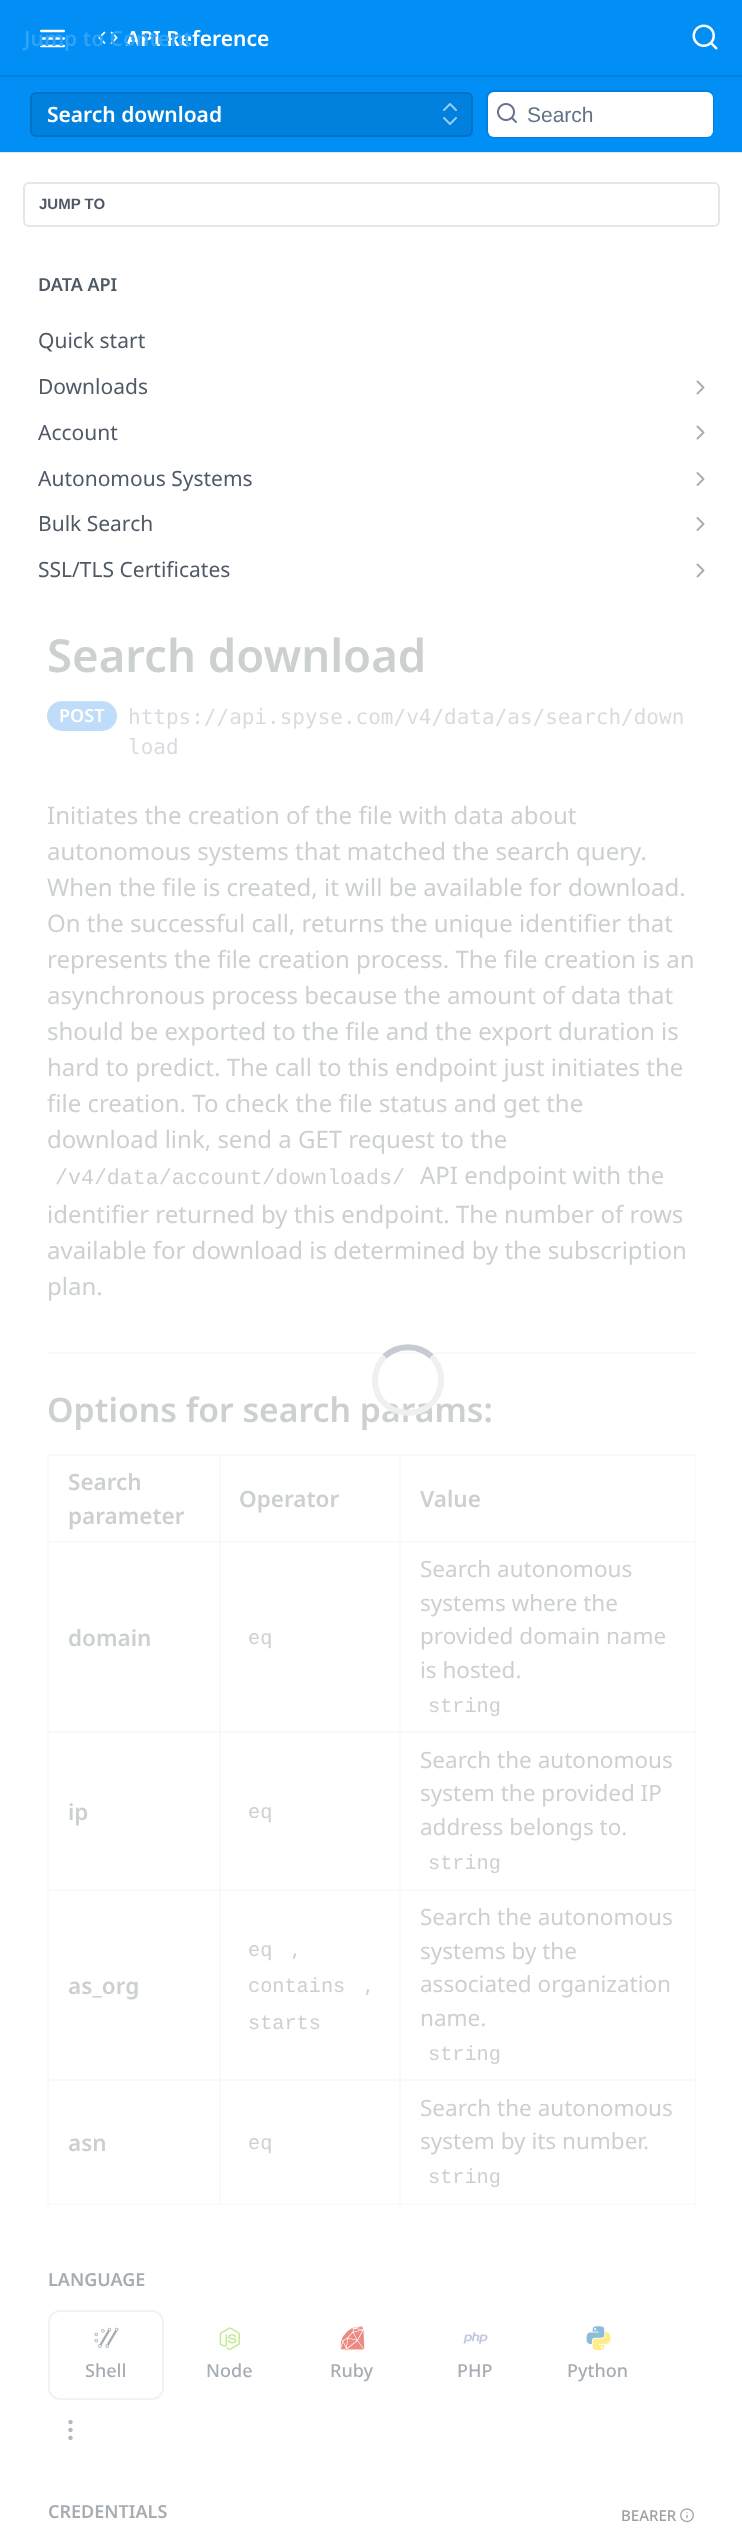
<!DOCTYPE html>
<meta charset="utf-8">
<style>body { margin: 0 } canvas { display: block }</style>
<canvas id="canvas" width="742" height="2533"></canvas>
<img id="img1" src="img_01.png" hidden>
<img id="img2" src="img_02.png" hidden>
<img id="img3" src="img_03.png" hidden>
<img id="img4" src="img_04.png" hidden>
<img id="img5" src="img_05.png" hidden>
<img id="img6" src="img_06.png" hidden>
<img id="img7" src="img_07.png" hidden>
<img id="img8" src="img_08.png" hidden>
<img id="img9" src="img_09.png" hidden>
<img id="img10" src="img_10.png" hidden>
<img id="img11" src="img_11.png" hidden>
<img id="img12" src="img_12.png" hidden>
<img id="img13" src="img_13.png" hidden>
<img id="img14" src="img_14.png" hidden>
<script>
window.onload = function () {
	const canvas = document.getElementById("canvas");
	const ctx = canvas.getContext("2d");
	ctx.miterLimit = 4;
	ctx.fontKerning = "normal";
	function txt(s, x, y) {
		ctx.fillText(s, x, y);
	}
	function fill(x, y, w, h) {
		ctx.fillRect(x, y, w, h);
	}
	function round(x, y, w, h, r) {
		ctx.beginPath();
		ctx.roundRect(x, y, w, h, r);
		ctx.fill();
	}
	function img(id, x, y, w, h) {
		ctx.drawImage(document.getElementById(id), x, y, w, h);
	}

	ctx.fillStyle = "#FFFFFF";
	fill(0, 0, 742, 2533);
	ctx.fillStyle = "#E6E6E6";
	ctx.beginPath();
	ctx.moveTo(0, 152);
	ctx.lineTo(0, 153);
	ctx.lineTo(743, 153);
	ctx.lineTo(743, 2);
	ctx.lineTo(742, 2);
	ctx.lineTo(742, 152);
	ctx.closePath();
	ctx.fill();
	ctx.fillStyle = "#018EF5";
	fill(0, 0, 742, 152);
	ctx.fillStyle = "#0180DD";
	fill(0, 75, 742, 2);
	img("img1", 40, 29, 25, 19);
	img("img2", 98, 31, 20, 13);
	img("img3", 692, 24, 26, 26);
	round(30, 92, 443, 45, 6);
	ctx.beginPath();
	ctx.roundRect(31, 93, 441, 43, 5);
	ctx.strokeStyle = "rgba(0, 0, 0, 0.1)";
	ctx.lineWidth = 2;
	ctx.stroke();
	ctx.beginPath();
	ctx.moveTo(444, 118);
	ctx.lineTo(450, 124);
	ctx.lineTo(456, 118);
	ctx.moveTo(456, 110);
	ctx.lineTo(450, 104);
	ctx.lineTo(444, 110);
	ctx.strokeStyle = "#99CCF1";
	ctx.lineCap = "round";
	ctx.lineJoin = "round";
	ctx.stroke();
	ctx.beginPath();
	ctx.roundRect(487, 91, 226, 46, 7);
	ctx.strokeStyle = "#0180DD";
	ctx.lineJoin = "miter";
	ctx.stroke();
	ctx.fillStyle = "#FFFFFF";
	round(488, 92, 225, 45, 6);
	img("img4", 497, 103, 20, 20);
	ctx.beginPath();
	ctx.roundRect(24, 183, 695, 43, 5);
	ctx.strokeStyle = "#E6E6E6";
	ctx.stroke();
	img("img5", 696, 380, 9, 15);
	img("img5", 696, 425, 9, 15);
	img("img6", 696, 472, 9, 14);
	img("img6", 696, 517, 9, 14);
	img("img5", 696, 563, 9, 15);
	ctx.fillStyle = "#F9F9F9";
	fill(47, 1352, 649, 2);
	ctx.fillStyle = "#BFDCF8";
	round(47, 701, 70, 30, 15);
	ctx.fillStyle = "rgba(255, 255, 255, 0.2)";
	ctx.beginPath();
	ctx.moveTo(62, 702);
	ctx.lineTo(102, 702);
	ctx.bezierCurveTo(110, 702, 117, 709, 117, 717);
	ctx.lineTo(117, 716);
	ctx.bezierCurveTo(117, 708, 110, 701, 102, 701);
	ctx.lineTo(62, 701);
	ctx.bezierCurveTo(57, 701, 52, 704, 50, 708);
	ctx.bezierCurveTo(52, 704, 57, 702, 62, 702);
	ctx.closePath();
	ctx.fill();
	ctx.beginPath();
	ctx.moveTo(384.5, 1356.5);
	ctx.bezierCurveTo(397.5, 1344, 418.5, 1344, 431.5, 1356.5);
	ctx.strokeStyle = "#C6CBD3";
	ctx.lineWidth = 6;
	ctx.lineCap = "butt";
	ctx.stroke();
	ctx.fillStyle = "#F9F9F9";
	fill(47, 1454, 649, 2);
	fill(695, 1454, 1, 751);
	fill(47, 2204, 649, 1);
	fill(47, 1454, 2, 751);
	fill(399, 1541, 297, 2);
	fill(47, 1731, 649, 2);
	fill(47, 1889, 649, 2);
	fill(47, 2079, 649, 2);
	fill(399, 1731, 2, 474);
	fill(399, 1541, 2, 192);
	fill(219, 1541, 182, 2);
	fill(219, 1731, 2, 474);
	fill(219, 1541, 2, 192);
	fill(47, 1541, 174, 2);
	fill(219, 1454, 2, 88);
	fill(399, 1454, 2, 88);
	ctx.beginPath();
	ctx.roundRect(49, 2311, 114, 88, 11);
	ctx.strokeStyle = "#F2F2F2";
	ctx.lineWidth = 2;
	ctx.stroke();
	img("img7", 94, 2327, 25, 21);
	img("img8", 219, 2327, 21, 23);
	img("img9", 340, 2326, 25, 25);
	img("img10", 463, 2332, 25, 12);
	img("img11", 586, 2326, 19, 19);
	img("img12", 592, 2332, 19, 19);
	img("img13", 68, 2420, 5, 20);
	img("img14", 680, 2508, 14, 15);
	ctx.font = "600 21px Noto Sans";
	ctx.fillStyle = "#FFFFFF";
	txt("API Reference", 126, 46);
	ctx.fillStyle = "#2FA3F7";
	txt("Jump to Content", 24, 46);
	ctx.fillStyle = "#FFFFFF";
	txt("Search download", 47, 122);
	ctx.font = "21px Liberation Sans";
	ctx.fillStyle = "#637288";
	txt("Search", 527, 122);
	ctx.font = "bold 15px Liberation Sans";
	ctx.fillStyle = "#4F5A66";
	txt("JUMP TO", 39, 209);
	ctx.font = "600 18px Noto Sans";
	txt("DATA API", 38, 291);
	ctx.font = "21px Noto Sans";
	txt("Quick start", 38, 348);
	txt("Downloads", 38, 394);
	txt("Account", 38, 440);
	txt("Autonomous Systems", 38, 486);
	txt("Bulk Search", 38, 531);
	txt("SSL/TLS Certificates", 38, 577);
	ctx.font = "600 45.5px Noto Sans";
	ctx.fillStyle = "#CDD0D1";
	txt("Search download", 47, 672);
	ctx.font = "600 18px Noto Sans";
	ctx.fillStyle = "#FFFFFF";
	txt("POST", 59, 722);
	ctx.font = "21px DejaVu Sans Mono";
	ctx.fillStyle = "#D8DCE1";
	txt("https://api.spyse.com/v4/data/as/search/down", 128, 724);
	txt("load", 128, 754);
	ctx.font = "24px Noto Sans";
	ctx.fillStyle = "#CDD0D1";
	txt("Initiates the creation of the file with data about", 47, 824);
	txt("autonomous systems that matched the search query.", 47, 860);
	txt("When the file is created, it will be available for download.", 47, 896);
	txt("On the successful call, returns the unique identifier that", 47, 932);
	txt("represents the file creation process. The file creation is an", 47, 968);
	txt("asynchronous process because the amount of data that", 47, 1004);
	txt("should be exported to the file and the export duration is", 47, 1040);
	txt("hard to predict. The call to this endpoint just initiates the", 47, 1076);
	txt("file creation. To check the file status and get the", 47, 1112);
	txt("download link, send a GET request to the", 47, 1148);
	ctx.font = "21.6px Liberation Mono";
	txt("/v4/data/account/downloads/", 55, 1184);
	ctx.font = "24px Noto Sans";
	txt("API endpoint with the", 420, 1184);
	txt("identifier returned by this endpoint. The number of rows", 47, 1223);
	txt("available for download is determined by the subscription", 47, 1259);
	txt("plan.", 47, 1295);
	ctx.font = "600 33.75px Noto Sans";
	txt("Options for search params:", 47, 1422);
	ctx.beginPath();
	ctx.moveTo(431.5, 1356.5);
	ctx.bezierCurveTo(439, 1364.5, 442.5, 1375.5, 440.5, 1386.5);
	ctx.bezierCurveTo(432.5, 1425, 375, 1419.5, 375, 1380);
	ctx.bezierCurveTo(375, 1371.5, 378.5, 1363, 384.5, 1356.5);
	ctx.strokeStyle = "#F0F0F0";
	ctx.lineWidth = 6;
	ctx.stroke();
	ctx.font = "600 22.5px Noto Sans";
	txt("Search", 68, 1490);
	txt("parameter", 68, 1524);
	txt("Operator", 239, 1507);
	txt("Value", 420, 1507);
	txt("domain", 68, 1646);
	ctx.font = "20.25px Liberation Mono";
	txt("eq", 248, 1644);
	ctx.font = "22.5px Noto Sans";
	txt("Search autonomous", 420, 1577);
	txt("systems where the", 420, 1611);
	txt("provided domain name", 420, 1644);
	txt("is hosted.", 420, 1678);
	ctx.font = "20.25px Liberation Mono";
	txt("string", 428, 1712);
	ctx.font = "600 22.5px Noto Sans";
	txt("ip", 68, 1820);
	ctx.font = "20.25px Liberation Mono";
	txt("eq", 248, 1818);
	ctx.font = "22.5px Noto Sans";
	txt("Search the autonomous", 420, 1768);
	txt("system the provided IP", 420, 1801);
	txt("address belongs to.", 420, 1835);
	ctx.font = "20.25px Liberation Mono";
	txt("string", 428, 1869);
	ctx.font = "600 22.5px Noto Sans";
	txt("as_org", 68, 1994);
	ctx.font = "20.25px Liberation Mono";
	txt("eq", 248, 1956);
	ctx.font = "22.5px Noto Sans";
	txt(",", 292, 1956);
	ctx.font = "20.25px Liberation Mono";
	txt("contains", 248, 1992);
	ctx.font = "22.5px Noto Sans";
	txt(",", 365, 1992);
	ctx.font = "20.25px Liberation Mono";
	txt("starts", 248, 2029);
	ctx.font = "22.5px Noto Sans";
	txt("Search the autonomous", 420, 1925);
	txt("systems by the", 420, 1959);
	txt("associated organization", 420, 1992);
	txt("name.", 420, 2026);
	ctx.font = "20.25px Liberation Mono";
	txt("string", 428, 2060);
	ctx.font = "600 22.5px Noto Sans";
	txt("asn", 68, 2151);
	ctx.font = "20.25px Liberation Mono";
	txt("eq", 248, 2149);
	ctx.font = "22.5px Noto Sans";
	txt("Search the autonomous", 420, 2116);
	txt("system by its number.", 420, 2149);
	ctx.font = "20.25px Liberation Mono";
	txt("string", 428, 2183);
	ctx.font = "600 18px Noto Sans";
	ctx.fillStyle = "#A7ADB3";
	txt("LANGUAGE", 48, 2286);
	ctx.font = "500 18px Noto Sans";
	txt("Shell", 85, 2377);
	txt("Node", 206, 2377);
	txt("Ruby", 330, 2377);
	txt("PHP", 457, 2377);
	txt("Python", 567, 2377);
	ctx.font = "600 18px Noto Sans";
	txt("CREDENTIALS", 48, 2518);
	ctx.font = "500 15px Noto Sans";
	ctx.fillStyle = "#9CA1A4";
	txt("BEARER", 621, 2521);
};
</script>
